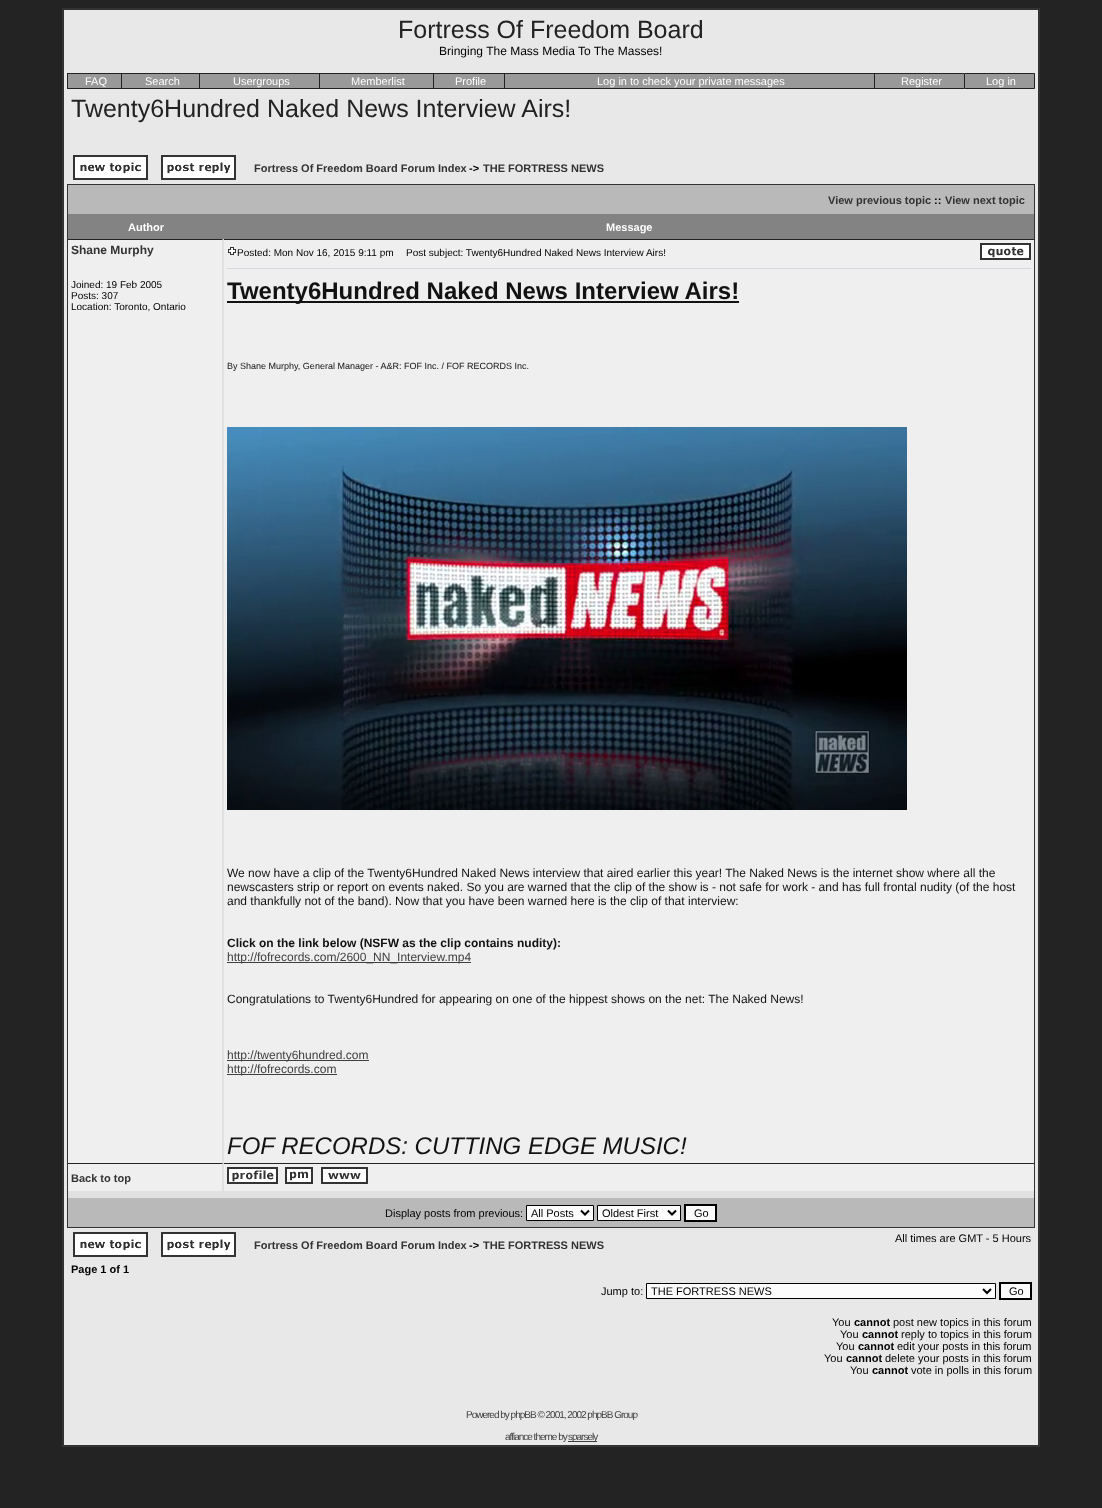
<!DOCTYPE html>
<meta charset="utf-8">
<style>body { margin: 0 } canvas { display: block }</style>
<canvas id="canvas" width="1102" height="1508"></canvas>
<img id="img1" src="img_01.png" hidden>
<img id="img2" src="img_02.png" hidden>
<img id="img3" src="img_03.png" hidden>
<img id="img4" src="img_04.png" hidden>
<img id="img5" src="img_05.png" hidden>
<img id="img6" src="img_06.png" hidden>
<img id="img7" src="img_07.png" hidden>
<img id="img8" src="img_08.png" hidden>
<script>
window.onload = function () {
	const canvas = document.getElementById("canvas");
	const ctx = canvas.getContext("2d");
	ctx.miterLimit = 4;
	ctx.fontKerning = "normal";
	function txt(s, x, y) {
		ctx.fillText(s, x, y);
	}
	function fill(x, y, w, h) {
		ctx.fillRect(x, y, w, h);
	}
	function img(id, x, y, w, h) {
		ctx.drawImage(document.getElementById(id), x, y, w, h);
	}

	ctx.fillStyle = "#232323";
	fill(0, 0, 1102, 1508);
	ctx.fillStyle = "#E8E8E8";
	ctx.beginPath();
	ctx.rect(63, 9, 976, 1437);
	ctx.fill();
	ctx.strokeStyle = "#333333";
	ctx.lineWidth = 2;
	ctx.stroke();
	ctx.fillStyle = "#999999";
	fill(68, 74, 53, 14);
	ctx.fillStyle = "#232323";
	fill(67, 73, 897, 1);
	fill(67, 88, 897, 1);
	fill(67, 73, 1, 16);
	ctx.fillStyle = "#999999";
	fill(122, 74, 77, 14);
	ctx.fillStyle = "#232323";
	fill(121, 73, 1, 16);
	ctx.fillStyle = "#999999";
	fill(200, 74, 119, 14);
	ctx.fillStyle = "#232323";
	fill(199, 73, 1, 16);
	ctx.fillStyle = "#999999";
	fill(320, 74, 113, 14);
	ctx.fillStyle = "#232323";
	fill(319, 73, 1, 16);
	ctx.fillStyle = "#999999";
	fill(434, 74, 70, 14);
	ctx.fillStyle = "#232323";
	fill(433, 73, 1, 16);
	ctx.fillStyle = "#999999";
	fill(505, 74, 369, 14);
	ctx.fillStyle = "#232323";
	fill(504, 73, 1, 16);
	ctx.fillStyle = "#999999";
	fill(875, 74, 89, 14);
	ctx.fillStyle = "#232323";
	fill(874, 73, 1, 16);
	ctx.fillStyle = "#999999";
	ctx.beginPath();
	ctx.rect(964.5, 73.5, 70, 15);
	ctx.fill();
	ctx.strokeStyle = "#232323";
	ctx.lineWidth = 1;
	ctx.stroke();
	img("img1", 73, 155, 75, 25);
	img("img2", 161, 155, 75, 25);
	ctx.strokeStyle = "#333333";
	ctx.strokeRect(67.5, 184.5, 967, 1043);
	ctx.fillStyle = "#B9B9B9";
	fill(68, 185, 966, 29);
	ctx.fillStyle = "#838383";
	fill(68, 214, 966, 25);
	ctx.fillStyle = "#EFEFEF";
	fill(68, 240, 154, 923);
	ctx.fillStyle = "#232323";
	ctx.beginPath();
	ctx.moveTo(68, 239);
	ctx.lineTo(224, 239);
	ctx.lineTo(222, 240);
	ctx.lineTo(68, 240);
	ctx.closePath();
	ctx.fill();
	ctx.fillStyle = "#E0E0E0";
	ctx.beginPath();
	ctx.moveTo(224, 239);
	ctx.lineTo(224, 1163);
	ctx.lineTo(222, 1163);
	ctx.lineTo(222, 240);
	ctx.closePath();
	ctx.fill();
	ctx.fillStyle = "#EFEFEF";
	fill(224, 240, 810, 923);
	ctx.fillStyle = "#232323";
	fill(224, 239, 810, 1);
	img("img3", 228, 247, 8, 8);
	img("img4", 980, 243, 51, 17);
	ctx.fillStyle = "#D1D7DC";
	fill(227, 268, 804, 1);
	ctx.fillStyle = "#121212";
	fill(227, 301, 512, 2);
	img("img5", 227, 427, 680, 383);
	ctx.fillStyle = "#404040";
	fill(227, 962, 244, 1);
	fill(227, 1060, 142, 1);
	fill(227, 1074, 110, 1);
	ctx.fillStyle = "#EFEFEF";
	fill(68, 1164, 154, 27);
	ctx.fillStyle = "#232323";
	ctx.beginPath();
	ctx.moveTo(68, 1163);
	ctx.lineTo(224, 1163);
	ctx.lineTo(222, 1164);
	ctx.lineTo(68, 1164);
	ctx.closePath();
	ctx.fill();
	ctx.fillStyle = "#E0E0E0";
	ctx.beginPath();
	ctx.moveTo(224, 1163);
	ctx.lineTo(224, 1191);
	ctx.lineTo(222, 1191);
	ctx.lineTo(222, 1164);
	ctx.closePath();
	ctx.fill();
	ctx.fillStyle = "#EFEFEF";
	fill(224, 1164, 810, 27);
	ctx.fillStyle = "#232323";
	fill(224, 1163, 810, 1);
	img("img6", 227, 1167, 51, 17);
	img("img7", 285, 1167, 28, 17);
	img("img8", 321, 1167, 47, 17);
	ctx.fillStyle = "#E0E0E0";
	fill(68, 1191, 966, 7);
	ctx.fillStyle = "#B9B9B9";
	fill(68, 1198, 966, 29);
	ctx.fillStyle = "#FCFCFC";
	ctx.beginPath();
	ctx.rect(526.5, 1205.5, 67, 15);
	ctx.fill();
	ctx.strokeStyle = "#000000";
	ctx.stroke();
	ctx.beginPath();
	ctx.moveTo(581, 1210.5);
	ctx.lineTo(585, 1214.5);
	ctx.lineTo(589, 1210.5);
	ctx.lineWidth = 2;
	ctx.stroke();
	ctx.beginPath();
	ctx.rect(597.5, 1205.5, 83, 15);
	ctx.fill();
	ctx.lineWidth = 1;
	ctx.stroke();
	ctx.beginPath();
	ctx.moveTo(668, 1210.5);
	ctx.lineTo(672, 1214.5);
	ctx.lineTo(676, 1210.5);
	ctx.lineWidth = 2;
	ctx.stroke();
	ctx.fillStyle = "#FAFAFA";
	ctx.beginPath();
	ctx.rect(685, 1205, 31, 16);
	ctx.fill();
	ctx.stroke();
	img("img1", 73, 1232, 75, 25);
	img("img2", 161, 1232, 75, 25);
	ctx.fillStyle = "#FCFCFC";
	ctx.beginPath();
	ctx.rect(646.5, 1283.5, 349, 15);
	ctx.fill();
	ctx.lineWidth = 1;
	ctx.stroke();
	ctx.beginPath();
	ctx.moveTo(983, 1289);
	ctx.lineTo(987, 1293);
	ctx.lineTo(991, 1289);
	ctx.lineWidth = 2;
	ctx.stroke();
	ctx.fillStyle = "#FAFAFA";
	ctx.beginPath();
	ctx.rect(1000, 1283, 31, 16);
	ctx.fill();
	ctx.stroke();
	ctx.fillStyle = "#404040";
	fill(568, 1441, 29, 1);
	ctx.font = "25px Liberation Sans";
	ctx.fillStyle = "#222222";
	txt("Fortress Of Freedom Board", 398, 38);
	ctx.font = "12px Liberation Sans";
	ctx.fillStyle = "#000000";
	txt("Bringing The Mass Media To The Masses!", 439, 55);
	ctx.font = "11px Liberation Sans";
	ctx.fillStyle = "#FFFFFF";
	txt("FAQ", 85, 85);
	txt("Search", 145, 85);
	txt("Usergroups", 233, 85);
	txt("Memberlist", 351, 85);
	txt("Profile", 455, 85);
	txt("Log in to check your private messages", 597, 85);
	txt("Register", 901, 85);
	txt("Log in", 986, 85);
	ctx.font = "25px Liberation Sans";
	ctx.fillStyle = "#222222";
	txt("Twenty6Hundred Naked News Interview Airs!", 71, 117);
	ctx.font = "bold 11px Liberation Sans";
	ctx.fillStyle = "#333333";
	txt("Fortress Of Freedom Board Forum Index", 254, 172);
	ctx.fillStyle = "#000000";
	txt("->", 469, 172);
	ctx.fillStyle = "#333333";
	txt("THE FORTRESS NEWS", 483, 172);
	txt("View previous topic", 828, 204);
	ctx.fillStyle = "#000000";
	txt("::", 934, 204);
	ctx.fillStyle = "#333333";
	txt("View next topic", 945, 204);
	ctx.fillStyle = "#FFFFFF";
	txt("Author", 128, 231);
	txt("Message", 606, 231);
	ctx.font = "bold 12px Liberation Sans";
	ctx.fillStyle = "#333333";
	txt("Shane Murphy", 71, 254);
	ctx.font = "10px Liberation Sans";
	ctx.fillStyle = "#000000";
	txt("Joined: 19 Feb 2005", 71, 288);
	txt("Posts: 307", 71, 299);
	txt("Location: Toronto, Ontario", 71, 310);
	txt("Posted: Mon Nov 16, 2015 9:11 pm", 237, 256);
	txt("Post subject: Twenty6Hundred Naked News Interview Airs!", 406, 256);
	ctx.font = "bold 24px Liberation Sans";
	ctx.fillStyle = "#121212";
	txt("Twenty6Hundred Naked News Interview Airs!", 227, 299);
	ctx.font = "9px Liberation Sans";
	txt("By Shane Murphy, General Manager - A&R: FOF Inc. / FOF RECORDS Inc.", 227, 369);
	ctx.font = "12px Liberation Sans";
	txt("We now have a clip of the Twenty6Hundred Naked News interview that aired earlier this year! The Naked News is the internet show where all the", 227, 877);
	txt("newscasters strip or report on events naked. So you are warned that the clip of the show is - not safe for work - and has full frontal nudity (of the host", 227, 891);
	txt("and thankfully not of the band). Now that you have been warned here is the clip of that interview:", 227, 905);
	ctx.font = "bold 12px Liberation Sans";
	txt("Click on the link below (NSFW as the clip contains nudity):", 227, 947);
	ctx.font = "12px Liberation Sans";
	ctx.fillStyle = "#404040";
	txt("http://fofrecords.com/2600_NN_Interview.mp4", 227, 961);
	ctx.fillStyle = "#121212";
	txt("Congratulations to Twenty6Hundred for appearing on one of the hippest shows on the net: The Naked News!", 227, 1003);
	ctx.fillStyle = "#404040";
	txt("http://twenty6hundred.com", 227, 1059);
	txt("http://fofrecords.com", 227, 1073);
	ctx.font = "italic 24px Liberation Sans";
	ctx.fillStyle = "#121212";
	txt("FOF RECORDS: CUTTING EDGE MUSIC!", 227, 1154);
	ctx.font = "bold 11px Liberation Sans";
	ctx.fillStyle = "#333333";
	txt("Back to top", 71, 1182);
	ctx.font = "11px Liberation Sans";
	ctx.fillStyle = "#000000";
	txt("Display posts from previous:", 385, 1217);
	txt("All Posts", 531, 1217);
	txt("Oldest First", 602, 1217);
	txt("Go", 694, 1217);
	txt("All times are GMT - 5 Hours", 895, 1242);
	ctx.font = "bold 11px Liberation Sans";
	ctx.fillStyle = "#333333";
	txt("Fortress Of Freedom Board Forum Index", 254, 1249);
	ctx.fillStyle = "#000000";
	txt("->", 469, 1249);
	ctx.fillStyle = "#333333";
	txt("THE FORTRESS NEWS", 483, 1249);
	ctx.fillStyle = "#000000";
	txt("Page 1 of 1", 71, 1273);
	ctx.font = "11px Liberation Sans";
	txt("Jump to:", 601, 1295);
	txt("THE FORTRESS NEWS", 651, 1295);
	txt("Go", 1009, 1295);
	txt("You", 832, 1326);
	ctx.font = "bold 11px Liberation Sans";
	txt("cannot", 854, 1326);
	ctx.font = "11px Liberation Sans";
	txt("post new topics in this forum", 893, 1326);
	txt("You", 840, 1338);
	ctx.font = "bold 11px Liberation Sans";
	txt("cannot", 862, 1338);
	ctx.font = "11px Liberation Sans";
	txt("reply to topics in this forum", 901, 1338);
	txt("You", 836, 1350);
	ctx.font = "bold 11px Liberation Sans";
	txt("cannot", 858, 1350);
	ctx.font = "11px Liberation Sans";
	txt("edit your posts in this forum", 897, 1350);
	txt("You", 824, 1362);
	ctx.font = "bold 11px Liberation Sans";
	txt("cannot", 846, 1362);
	ctx.font = "11px Liberation Sans";
	txt("delete your posts in this forum", 885, 1362);
	txt("You", 850, 1374);
	ctx.font = "bold 11px Liberation Sans";
	txt("cannot", 872, 1374);
	ctx.font = "11px Liberation Sans";
	txt("vote in polls in this forum", 911, 1374);
	ctx.letterSpacing = "-1px";
	ctx.font = "10px Liberation Sans";
	ctx.fillStyle = "#404040";
	txt("Powered by phpBB © 2001, 2002 phpBB Group", 466, 1418);
	txt("affiance theme by", 505, 1440);
	txt("sparsely", 568, 1440);
};
</script>
